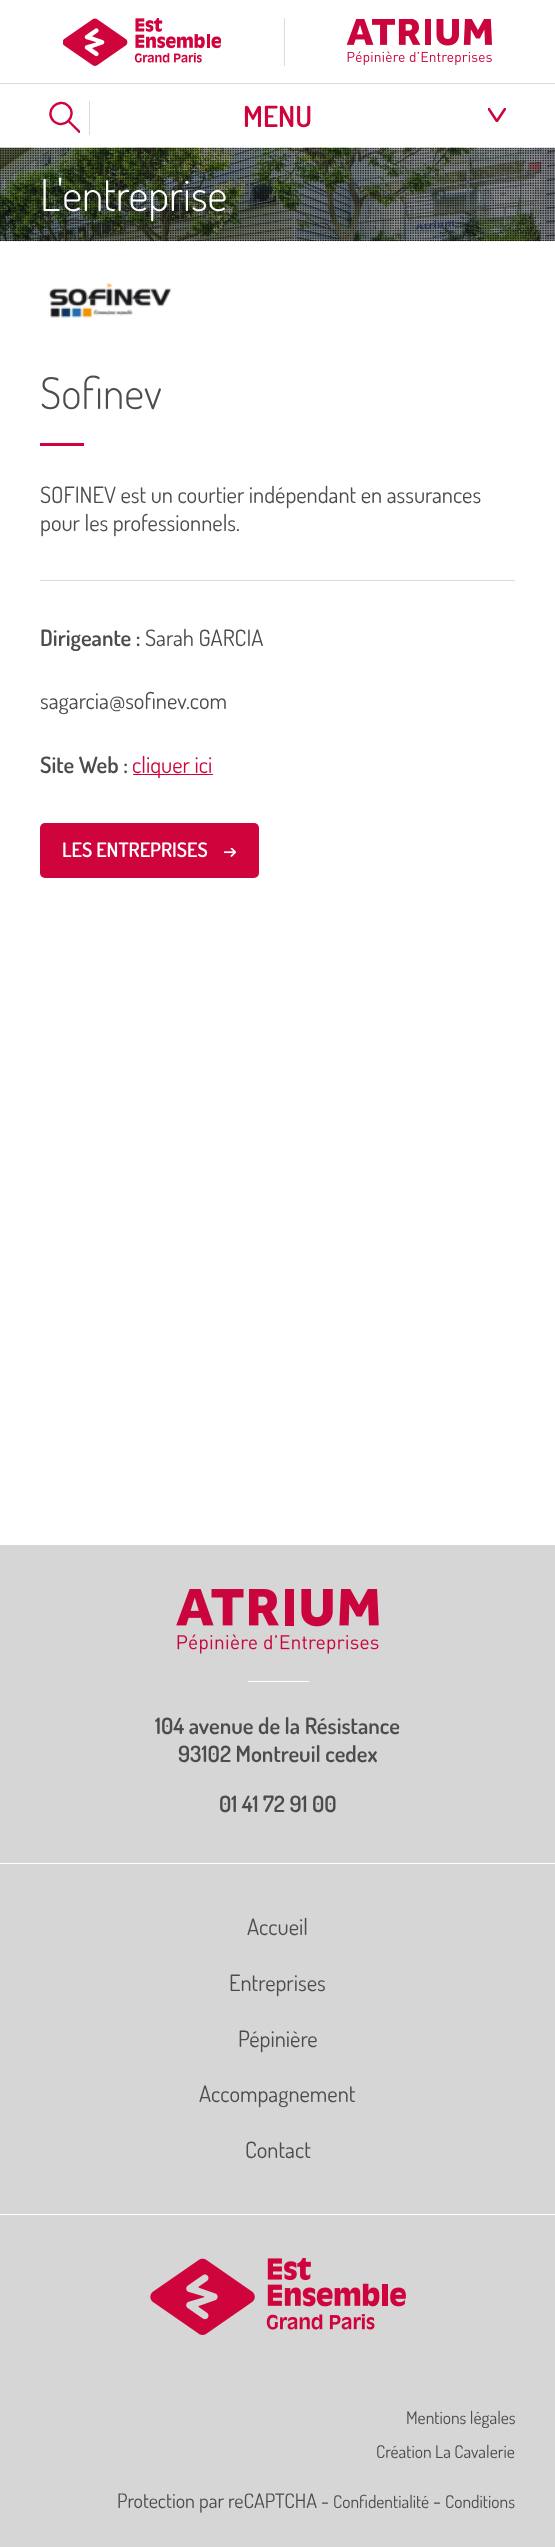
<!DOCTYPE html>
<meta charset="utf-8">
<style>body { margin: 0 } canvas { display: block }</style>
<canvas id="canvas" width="555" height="2547"></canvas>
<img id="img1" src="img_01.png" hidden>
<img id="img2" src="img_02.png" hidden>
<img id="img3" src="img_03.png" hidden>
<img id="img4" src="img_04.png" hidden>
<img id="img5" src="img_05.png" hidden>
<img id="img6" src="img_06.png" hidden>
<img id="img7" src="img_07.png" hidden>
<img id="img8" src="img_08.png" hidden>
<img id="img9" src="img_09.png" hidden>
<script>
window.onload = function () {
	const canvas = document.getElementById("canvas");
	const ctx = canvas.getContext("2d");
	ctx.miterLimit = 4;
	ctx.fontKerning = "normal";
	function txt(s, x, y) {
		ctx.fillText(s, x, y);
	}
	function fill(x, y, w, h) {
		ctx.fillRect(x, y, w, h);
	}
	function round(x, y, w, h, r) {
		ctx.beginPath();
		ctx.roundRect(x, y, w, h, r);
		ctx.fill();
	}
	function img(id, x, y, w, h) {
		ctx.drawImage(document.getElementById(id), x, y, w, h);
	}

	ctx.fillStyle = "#FFFFFF";
	fill(0, 0, 555, 2547);
	ctx.fillStyle = "#DBDBDB";
	fill(284, 18, 1, 48);
	img("img1", 63, 18, 158, 48);
	img("img2", 346, 19, 146, 46);
	fill(0, 83, 555, 1);
	fill(89, 101, 1, 34);
	ctx.save();
	ctx.beginPath();
	ctx.rect(49, 101, 31, 32);
	ctx.clip();
	ctx.beginPath();
	ctx.moveTo(68.5, 121);
	ctx.lineTo(79.5, 132);
	ctx.moveTo(68.5, 106);
	ctx.bezierCurveTo(78, 116, 63.5, 130.5, 53.5, 121);
	ctx.bezierCurveTo(44, 111, 58.5, 96.5, 68.5, 106);
	ctx.closePath();
	ctx.strokeStyle = "#CF043C";
	ctx.lineWidth = 2.4;
	ctx.lineCap = "round";
	ctx.stroke();
	ctx.restore();
	img("img3", 488, 108, 18, 14);
	img("img4", 0, 147, 555, 95);
	img("img5", 0, 147, 555, 95);
	img("img6", 48, 282, 124, 36);
	ctx.fillStyle = "#CF043C";
	fill(40, 443, 44, 3);
	ctx.fillStyle = "#DBDBDB";
	fill(40, 580, 475, 1);
	ctx.fillStyle = "#CF043C";
	fill(133, 774, 80, 1);
	round(40, 823, 219, 55, 5);
	img("img7", 224, 848, 12, 9);
	ctx.fillStyle = "#D6D6D6";
	fill(0, 1545, 555, 1002);
	img("img8", 176, 1589, 203, 65);
	ctx.fillStyle = "#FFFFFF";
	fill(248, 1681, 61, 1);
	fill(0, 1863, 555, 1);
	fill(0, 2214, 555, 1);
	img("img9", 150, 2258, 256, 77);
	ctx.font = "600 29px Dosis";
	ctx.fillStyle = "#CF043C";
	txt("MENU", 243, 127);
	ctx.font = "300 43.75px Dosis";
	ctx.fillStyle = "#FFFFFF";
	txt("L'entreprise", 40, 211);
	ctx.fillStyle = "#4C4C4C";
	txt("Sofinev", 40, 409);
	ctx.font = "22.5px Dosis";
	txt("SOFINEV est un courtier indépendant en assurances", 40, 503);
	txt("pour les professionnels.", 40, 531);
	ctx.font = "600 22.5px Dosis";
	txt("Dirigeante :", 40, 646);
	ctx.font = "22.5px Dosis";
	txt("Sarah GARCIA", 145, 646);
	txt("sagarcia@sofinev.com", 40, 709);
	ctx.font = "600 22.5px Dosis";
	txt("Site Web :", 40, 773);
	ctx.font = "22.5px Dosis";
	ctx.fillStyle = "#CF043C";
	txt("cliquer ici", 132, 773);
	ctx.font = "600 20px Dosis";
	ctx.fillStyle = "#FFFFFF";
	txt("LES ENTREPRISES", 62, 857);
	ctx.font = "600 22.5px Dosis";
	ctx.fillStyle = "#4C4C4C";
	txt("104 avenue de la Résistance", 155, 1734);
	txt("93102 Montreuil cedex", 178, 1762);
	txt("01 41 72 91 00", 219, 1812);
	ctx.font = "22.5px Dosis";
	txt("Accueil", 247, 1935);
	txt("Entreprises", 229, 1991);
	txt("Pépinière", 238, 2047);
	txt("Accompagnement", 199, 2102);
	txt("Contact", 245, 2158);
	ctx.font = "17.5px Dosis";
	txt("Mentions légales", 406, 2424);
	txt("Création La Cavalerie", 376, 2458);
	ctx.font = "20px Dosis";
	txt("Protection par reCAPTCHA -", 117, 2508);
	ctx.font = "17.5px Dosis";
	txt("Confidentialité", 333, 2508);
	ctx.font = "20px Dosis";
	txt("-", 433, 2508);
	ctx.font = "17.5px Dosis";
	txt("Conditions", 445, 2508);
};
</script>
